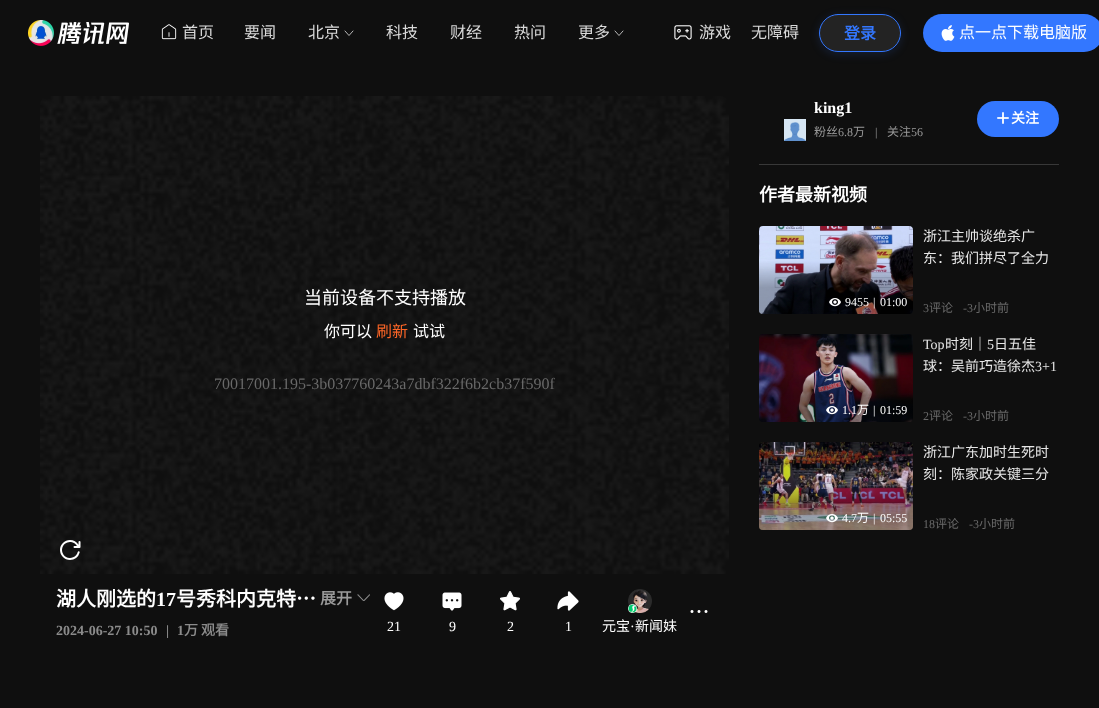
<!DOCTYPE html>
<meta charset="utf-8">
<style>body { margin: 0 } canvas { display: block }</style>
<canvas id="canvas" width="1099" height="708"></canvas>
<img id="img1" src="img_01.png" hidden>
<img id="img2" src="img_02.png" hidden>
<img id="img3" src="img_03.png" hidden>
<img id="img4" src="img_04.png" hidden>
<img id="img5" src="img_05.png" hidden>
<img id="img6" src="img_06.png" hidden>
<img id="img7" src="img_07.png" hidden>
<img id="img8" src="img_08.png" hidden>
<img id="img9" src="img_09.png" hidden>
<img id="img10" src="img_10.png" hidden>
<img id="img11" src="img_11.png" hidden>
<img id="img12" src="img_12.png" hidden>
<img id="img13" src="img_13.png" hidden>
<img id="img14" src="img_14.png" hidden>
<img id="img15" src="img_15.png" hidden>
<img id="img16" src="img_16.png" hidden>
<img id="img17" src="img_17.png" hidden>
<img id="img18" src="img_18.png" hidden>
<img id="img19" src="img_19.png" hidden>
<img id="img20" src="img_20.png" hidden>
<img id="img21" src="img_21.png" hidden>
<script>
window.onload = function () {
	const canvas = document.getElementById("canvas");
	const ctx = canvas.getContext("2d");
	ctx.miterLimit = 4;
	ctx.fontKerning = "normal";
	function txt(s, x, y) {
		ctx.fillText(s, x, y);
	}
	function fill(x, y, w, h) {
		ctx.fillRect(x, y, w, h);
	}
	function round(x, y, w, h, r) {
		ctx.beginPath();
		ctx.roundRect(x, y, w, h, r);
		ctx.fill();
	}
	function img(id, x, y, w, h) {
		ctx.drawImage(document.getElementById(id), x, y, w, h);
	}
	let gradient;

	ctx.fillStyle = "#0F0F0F";
	fill(0, 0, 1099, 708);
	img("img1", 28, 20, 101, 26);
	img("img2", 161, 24, 16, 16);
	ctx.beginPath();
	ctx.moveTo(353, 31);
	ctx.lineTo(349, 35.5);
	ctx.lineTo(345, 31);
	ctx.strokeStyle = "#FFFFFF";
	ctx.lineWidth = 0.7;
	ctx.lineCap = "round";
	ctx.lineJoin = "round";
	ctx.stroke();
	ctx.beginPath();
	ctx.moveTo(623, 31);
	ctx.lineTo(619, 35.5);
	ctx.lineTo(615, 31);
	ctx.stroke();
	img("img3", 674, 25, 18, 15);
	ctx.save();
	ctx.beginPath();
	ctx.moveTo(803, 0);
	ctx.lineTo(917, 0);
	ctx.lineTo(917, 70);
	ctx.lineTo(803, 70);
	ctx.closePath();
	ctx.moveTo(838, 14);
	ctx.lineTo(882, 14);
	ctx.bezierCurveTo(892.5, 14, 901, 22.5, 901, 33);
	ctx.bezierCurveTo(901, 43.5, 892.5, 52, 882, 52);
	ctx.lineTo(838, 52);
	ctx.bezierCurveTo(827.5, 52, 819, 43.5, 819, 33);
	ctx.bezierCurveTo(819, 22.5, 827.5, 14, 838, 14);
	ctx.closePath();
	ctx.clip("evenodd");
	ctx.fillStyle = "rgba(51, 119, 255, 0.16)";
	ctx.filter = "blur(5px)";
	ctx.beginPath();
	ctx.roundRect(819, 16, 82, 38, 19);
	ctx.fill();
	ctx.filter = "none";
	ctx.restore();
	ctx.fillStyle = "rgba(217, 217, 217, 0.1)";
	ctx.beginPath();
	ctx.roundRect(819.5, 14.5, 81, 37, 18.5);
	ctx.fill();
	ctx.strokeStyle = "#3377FF";
	ctx.lineWidth = 1;
	ctx.lineJoin = "miter";
	ctx.stroke();
	ctx.fillStyle = "#3377FF";
	round(923, 14, 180, 38, 19);
	img("img4", 941, 25, 14, 16);
	img("img5", 40, 96, 689, 478);
	img("img6", 357, 594, 13, 7);
	img("img7", 690, 610, 18, 3);
	img("img8", 384, 592, 20, 19);
	img("img9", 442, 592, 20, 19);
	img("img10", 500, 591, 20, 20);
	img("img11", 557, 591, 22, 20);
	img("img12", 628, 589, 24, 24);
	img("img13", 628, 604, 9, 9);
	img("img14", 784, 119, 22, 22);
	round(977, 101, 82, 36, 18);
	img("img15", 997, 112, 12, 12);
	ctx.fillStyle = "#383838";
	fill(759, 164, 300, 1);
	img("img16", 759, 226, 154, 88);
	gradient = ctx.createLinearGradient(836, 314, 836, 226);
	gradient.addColorStop(0.3, "rgba(0, 0, 0, 0.3)");
	gradient.addColorStop(0.6, "rgba(0, 0, 0, 0)");
	ctx.fillStyle = gradient;
	round(759, 226, 154, 88, 4);
	img("img17", 829, 298, 12, 9);
	img("img18", 759, 334, 154, 88);
	gradient = ctx.createLinearGradient(836, 422, 836, 334);
	gradient.addColorStop(0.3, "rgba(0, 0, 0, 0.3)");
	gradient.addColorStop(0.6, "rgba(0, 0, 0, 0)");
	ctx.fillStyle = gradient;
	round(759, 334, 154, 88, 4);
	img("img19", 826, 406, 12, 9);
	img("img20", 759, 442, 154, 88);
	gradient = ctx.createLinearGradient(836, 530, 836, 442);
	gradient.addColorStop(0.3, "rgba(0, 0, 0, 0.3)");
	gradient.addColorStop(0.6, "rgba(0, 0, 0, 0)");
	ctx.fillStyle = gradient;
	round(759, 442, 154, 88, 4);
	img("img21", 826, 514, 12, 9);
	ctx.font = "16px Noto Sans CJK SC";
	ctx.fillStyle = "#D9D9D9";
	txt("首页", 182, 38);
	txt("要闻", 244, 38);
	txt("北京", 308, 38);
	txt("科技", 386, 38);
	txt("财经", 450, 38);
	txt("热问", 514, 38);
	txt("更多", 578, 38);
	txt("游戏", 699, 38);
	txt("无障碍", 751, 38);
	ctx.font = "bold 16px Noto Sans CJK SC";
	ctx.fillStyle = "#3377FF";
	txt("登录", 844, 39);
	ctx.font = "16px Noto Sans CJK SC";
	ctx.fillStyle = "#FFFFFF";
	txt("点一点下载电脑版", 959, 38);
	ctx.font = "18px Noto Sans CJK SC";
	txt("当前设备不支持播放", 304, 304);
	ctx.font = "16px Noto Sans CJK SC";
	txt("你可以", 324, 337);
	ctx.fillStyle = "#FC6526";
	txt("刷新", 376, 337);
	ctx.fillStyle = "#FFFFFF";
	txt("试试", 413, 337);
	ctx.font = "16px Liberation Serif";
	ctx.fillStyle = "#696969";
	txt("70017001.195-3b037760243a7dbf322f6b2cb37f590f", 214, 389);
	ctx.font = "bold 20px Noto Sans CJK SC";
	ctx.fillStyle = "#FFFFFF";
	txt("湖人刚选的", 56, 606);
	ctx.font = "bold 20px Liberation Serif";
	txt("17", 156, 606);
	ctx.font = "bold 20px Noto Sans CJK SC";
	txt("号秀科内克特…", 176, 606);
	ctx.font = "bold 16px Noto Sans CJK SC";
	ctx.fillStyle = "#999999";
	txt("展开", 320, 604);
	ctx.font = "bold 14px Liberation Serif";
	ctx.fillStyle = "#8B8B8B";
	txt("2024-06-27 10:50", 56, 635);
	txt("|", 166, 635);
	txt("1", 177, 635);
	ctx.font = "bold 14px Noto Sans CJK SC";
	txt("万", 184, 635);
	txt("观看", 201, 635);
	ctx.font = "14px Liberation Serif";
	ctx.fillStyle = "#FFFFFF";
	txt("21", 387, 631);
	txt("9", 449, 631);
	txt("2", 507, 631);
	txt("1", 565, 631);
	ctx.font = "14px Noto Sans CJK SC";
	txt("元宝", 602, 631);
	ctx.font = "14px Liberation Serif";
	txt("·", 630, 631);
	ctx.font = "14px Noto Sans CJK SC";
	txt("新闻妹", 635, 631);
	ctx.font = "bold 16px Liberation Serif";
	txt("king1", 814, 113);
	ctx.font = "12px Noto Sans CJK SC";
	ctx.fillStyle = "#999999";
	txt("粉丝", 814, 136);
	ctx.font = "12px Liberation Serif";
	txt("6.8", 838, 136);
	ctx.font = "12px Noto Sans CJK SC";
	txt("万", 853, 136);
	ctx.font = "12px Liberation Serif";
	txt("|", 875, 136);
	ctx.font = "12px Noto Sans CJK SC";
	txt("关注", 887, 136);
	ctx.font = "12px Liberation Serif";
	txt("56", 911, 136);
	ctx.font = "bold 14px Noto Sans CJK SC";
	ctx.fillStyle = "#FFFFFF";
	txt("关注", 1011, 123);
	ctx.font = "bold 18px Noto Sans CJK SC";
	txt("作者最新视频", 759, 201);
	ctx.font = "12px Liberation Serif";
	txt("9455", 845, 306);
	txt("|", 873, 306);
	txt("01:00", 880, 306);
	ctx.font = "14px Noto Sans CJK SC";
	ctx.fillStyle = "#E6E6E6";
	txt("浙江主帅谈绝杀广", 923, 241);
	txt("东：我们拼尽了全力", 923, 263);
	ctx.font = "12px Liberation Serif";
	ctx.fillStyle = "#696969";
	txt("3", 923, 312);
	ctx.font = "12px Noto Sans CJK SC";
	txt("评论", 929, 312);
	ctx.font = "12px Liberation Serif";
	txt("-3", 963, 312);
	ctx.font = "12px Noto Sans CJK SC";
	txt("小时前", 973, 312);
	ctx.font = "12px Liberation Serif";
	ctx.fillStyle = "#FFFFFF";
	txt("1.1", 842, 414);
	ctx.font = "12px Noto Sans CJK SC";
	txt("万", 857, 414);
	ctx.font = "12px Liberation Serif";
	txt("|", 873, 414);
	txt("01:59", 880, 414);
	ctx.font = "14px Liberation Serif";
	ctx.fillStyle = "#E6E6E6";
	txt("Top", 923, 349);
	ctx.font = "14px Noto Sans CJK SC";
	txt("时刻｜", 945, 349);
	ctx.font = "14px Liberation Serif";
	txt("5", 987, 349);
	ctx.font = "14px Noto Sans CJK SC";
	txt("日五佳", 994, 349);
	txt("球：吴前巧造徐杰", 923, 371);
	ctx.font = "14px Liberation Serif";
	txt("3+1", 1035, 371);
	ctx.font = "12px Liberation Serif";
	ctx.fillStyle = "#696969";
	txt("2", 923, 420);
	ctx.font = "12px Noto Sans CJK SC";
	txt("评论", 929, 420);
	ctx.font = "12px Liberation Serif";
	txt("-3", 963, 420);
	ctx.font = "12px Noto Sans CJK SC";
	txt("小时前", 973, 420);
	ctx.font = "12px Liberation Serif";
	ctx.fillStyle = "#FFFFFF";
	txt("4.7", 842, 522);
	ctx.font = "12px Noto Sans CJK SC";
	txt("万", 857, 522);
	ctx.font = "12px Liberation Serif";
	txt("|", 873, 522);
	txt("05:55", 880, 522);
	ctx.font = "14px Noto Sans CJK SC";
	ctx.fillStyle = "#E6E6E6";
	txt("浙江广东加时生死时", 923, 457);
	txt("刻：陈家政关键三分", 923, 479);
	ctx.font = "12px Liberation Serif";
	ctx.fillStyle = "#696969";
	txt("18", 923, 528);
	ctx.font = "12px Noto Sans CJK SC";
	txt("评论", 935, 528);
	ctx.font = "12px Liberation Serif";
	txt("-3", 969, 528);
	ctx.font = "12px Noto Sans CJK SC";
	txt("小时前", 979, 528);
};
</script>
